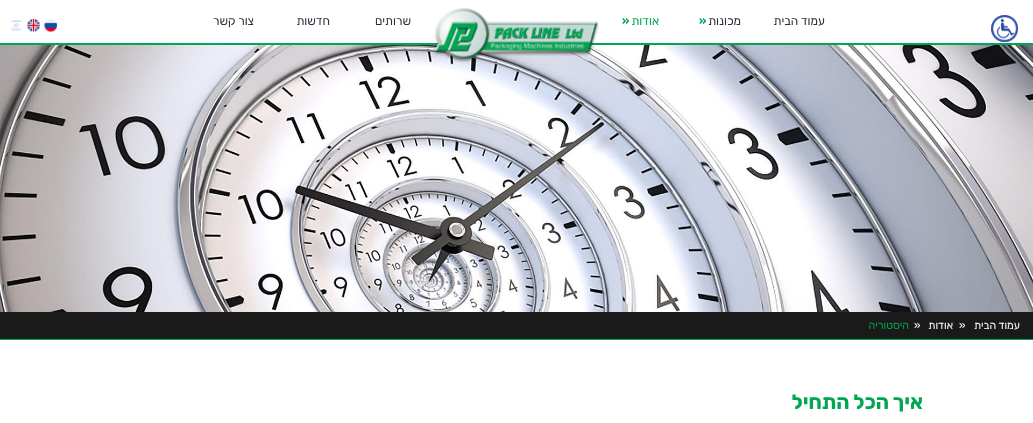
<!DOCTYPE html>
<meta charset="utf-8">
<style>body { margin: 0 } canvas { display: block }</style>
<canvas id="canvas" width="1033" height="423"></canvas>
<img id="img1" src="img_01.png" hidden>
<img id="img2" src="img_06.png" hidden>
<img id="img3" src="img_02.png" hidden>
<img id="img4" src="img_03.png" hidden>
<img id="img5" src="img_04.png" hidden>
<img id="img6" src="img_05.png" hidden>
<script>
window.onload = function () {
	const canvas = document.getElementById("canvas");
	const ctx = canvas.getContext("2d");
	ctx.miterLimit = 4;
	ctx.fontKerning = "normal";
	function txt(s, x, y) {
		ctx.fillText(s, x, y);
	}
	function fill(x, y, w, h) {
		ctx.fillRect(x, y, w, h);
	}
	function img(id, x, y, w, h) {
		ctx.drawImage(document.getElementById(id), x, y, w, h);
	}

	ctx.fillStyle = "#FFFFFF";
	fill(0, 0, 1033, 423);
	img("img1", 991, 15, 27, 27);
	ctx.fillStyle = "#00A651";
	fill(0, 43, 1033, 2);
	img("img2", 0, 45, 1033, 267);
	img("img3", 434, 8, 165, 55);
	img("img4", 44, 19, 13, 13);
	img("img5", 27, 19, 13, 13);
	img("img6", 11, 20, 11, 11);
	ctx.fillStyle = "#1A1A1A";
	fill(0, 312, 1033, 27);
	ctx.fillStyle = "#00A651";
	fill(0, 339, 1033, 1);
	ctx.direction = "rtl";
	ctx.font = "12px Rubik";
	ctx.fillStyle = "#29323C";
	txt("עמוד הבית", 825, 25);
	txt("מכונות", 741, 25);
	ctx.direction = "ltr";
	ctx.font = "bold 12px Rubik";
	ctx.fillStyle = "#00A651";
	txt("»", 699, 25);
	ctx.direction = "rtl";
	ctx.font = "12px Rubik";
	txt("אודות", 659, 25);
	ctx.direction = "ltr";
	ctx.font = "bold 12px Rubik";
	txt("»", 622, 25);
	ctx.direction = "rtl";
	ctx.font = "12px Rubik";
	ctx.fillStyle = "#29323C";
	txt("שרותים", 411, 25);
	txt("חדשות", 330, 25);
	txt("צור קשר", 254, 25);
	ctx.font = "10.75px Rubik";
	ctx.fillStyle = "#FFFFFF";
	txt("עמוד הבית", 1020, 329);
	ctx.direction = "ltr";
	txt("»", 959, 329);
	ctx.direction = "rtl";
	txt("אודות", 953, 329);
	ctx.direction = "ltr";
	txt("»", 914, 329);
	ctx.direction = "rtl";
	ctx.fillStyle = "#00A651";
	txt("היסטוריה", 909, 329);
	ctx.font = "bold 20.5px Rubik";
	txt("איך הכל התחיל", 923, 409);
};
</script>
